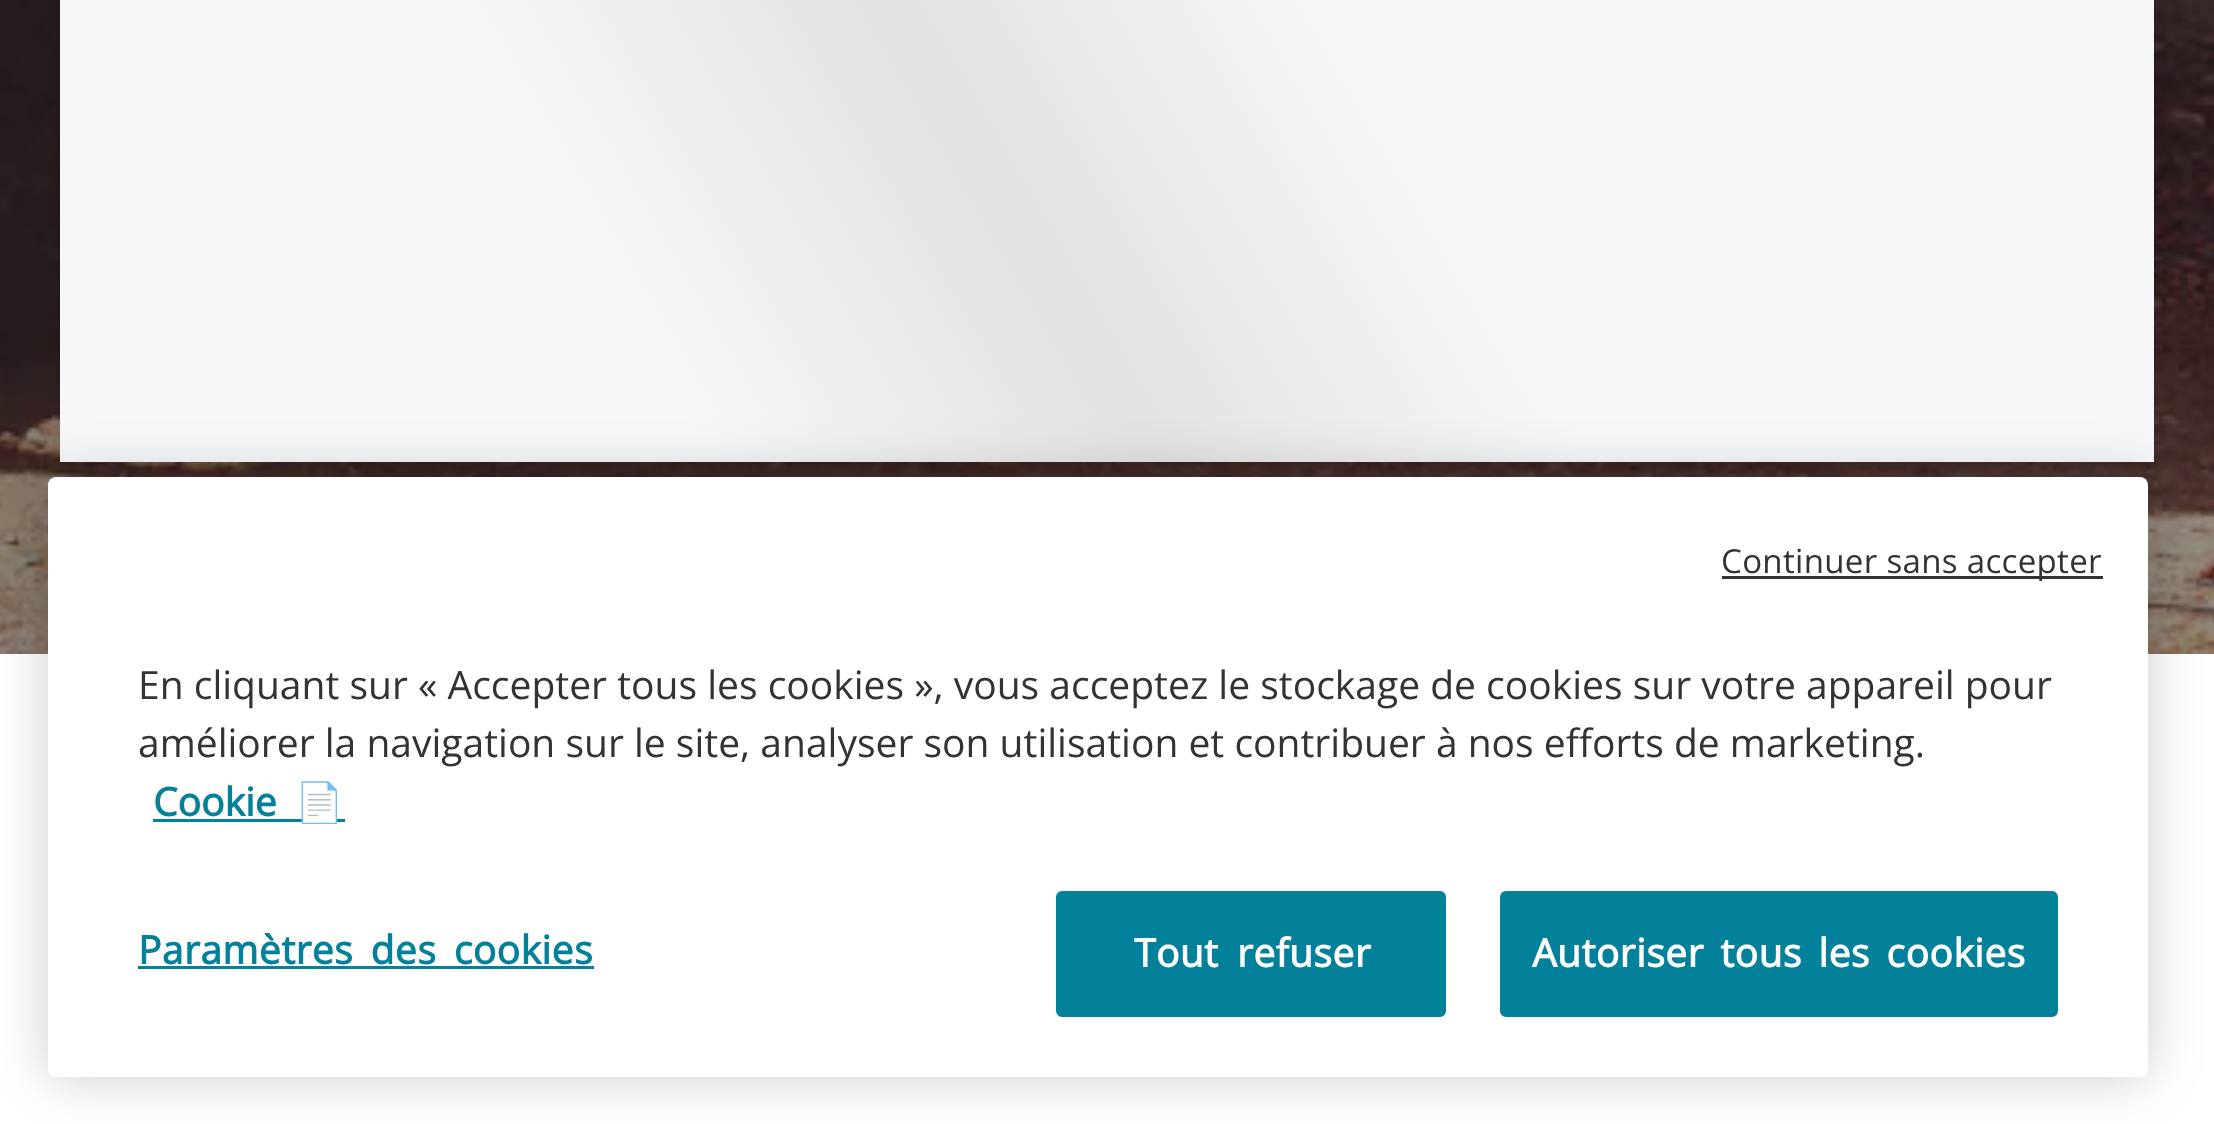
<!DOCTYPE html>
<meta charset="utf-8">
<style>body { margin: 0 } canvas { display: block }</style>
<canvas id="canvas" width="2214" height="1124"></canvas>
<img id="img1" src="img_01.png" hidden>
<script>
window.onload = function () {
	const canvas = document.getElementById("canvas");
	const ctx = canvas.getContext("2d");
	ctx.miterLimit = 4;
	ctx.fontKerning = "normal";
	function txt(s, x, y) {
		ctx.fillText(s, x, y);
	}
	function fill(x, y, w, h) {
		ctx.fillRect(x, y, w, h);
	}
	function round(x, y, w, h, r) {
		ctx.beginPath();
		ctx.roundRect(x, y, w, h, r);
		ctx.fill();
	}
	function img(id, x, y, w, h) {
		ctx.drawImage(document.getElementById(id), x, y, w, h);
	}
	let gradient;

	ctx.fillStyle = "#FFFFFF";
	fill(0, 0, 2214, 1124);
	img("img1", 0, 0, 2214, 654);
	ctx.fillStyle = "rgba(0, 0, 0, 0.14)";
	ctx.filter = "blur(6px)";
	ctx.beginPath();
	ctx.rect(60, -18, 2094, 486);
	ctx.fill();
	ctx.filter = "none";
	gradient = ctx.createLinearGradient(140, 600, 1780, -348);
	gradient.addColorStop(0, "#F6F7F8");
	gradient.addColorStop(0.3, "#F6F7F8");
	gradient.addColorStop(0.5, "#E2E2E2");
	gradient.addColorStop(0.7, "#F6F7F8");
	gradient.addColorStop(1, "#F6F7F8");
	ctx.fillStyle = gradient;
	fill(60, 0, 1800, 462);
	gradient = ctx.createLinearGradient(1940, 600, 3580, -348);
	gradient.addColorStop(0, "#F6F7F8");
	gradient.addColorStop(0.3, "#F6F7F8");
	gradient.addColorStop(0.5, "#E2E2E2");
	gradient.addColorStop(0.7, "#F6F7F8");
	gradient.addColorStop(1, "#F6F7F8");
	ctx.fillStyle = gradient;
	fill(1860, 0, 294, 462);
	ctx.beginPath();
	ctx.roundRect(49.5, 997.5, 117, 78, 10.5);
	ctx.strokeStyle = "#E5E5E5";
	ctx.lineWidth = 3;
	ctx.stroke();
	ctx.fillStyle = "rgba(0, 0, 0, 0.2)";
	ctx.filter = "blur(27px)";
	ctx.beginPath();
	ctx.roundRect(48, 477, 2100, 600, 8);
	ctx.fill();
	ctx.filter = "none";
	ctx.fillStyle = "#FFFFFF";
	round(48, 477, 2100, 600, 8);
	ctx.fillStyle = "#333333";
	fill(1722, 576, 381, 3);
	ctx.fillStyle = "#04819A";
	fill(153, 819, 192, 3);
	fill(138, 966, 456, 3);
	ctx.beginPath();
	ctx.roundRect(1057.5, 892.5, 387, 123, 4.5);
	ctx.fill();
	ctx.strokeStyle = "#04819A";
	ctx.stroke();
	ctx.beginPath();
	ctx.roundRect(1501.5, 892.5, 555, 123, 4.5);
	ctx.fill();
	ctx.stroke();
	ctx.letterSpacing = "0.3px";
	ctx.font = "33.1px Open Sans";
	ctx.fillStyle = "#333333";
	txt("Continuer sans accepter", 1721, 573);
	ctx.letterSpacing = "0px";
	ctx.font = "39px Open Sans";
	txt("En cliquant sur « Accepter tous les cookies », vous acceptez le stockage de cookies sur votre appareil pour", 138, 699);
	txt("améliorer la navigation sur le site, analyser son utilisation et contribuer à nos efforts de marketing.", 138, 757);
	ctx.font = "bold 39px Open Sans";
	ctx.fillStyle = "#04819A";
	txt("Cookie", 153, 816);
	ctx.font = "bold 39px Noto Color Emoji";
	txt("📄", 295, 816);
	ctx.letterSpacing = "0.4px";
	ctx.wordSpacing = "7px";
	ctx.font = "bold 39px Open Sans";
	txt("Paramètres des cookies", 138, 964);
	ctx.wordSpacing = "8px";
	ctx.fillStyle = "#FFFFFF";
	txt("Tout refuser", 1134, 967);
	ctx.wordSpacing = "6px";
	txt("Autoriser tous les cookies", 1532, 967);
};
</script>
